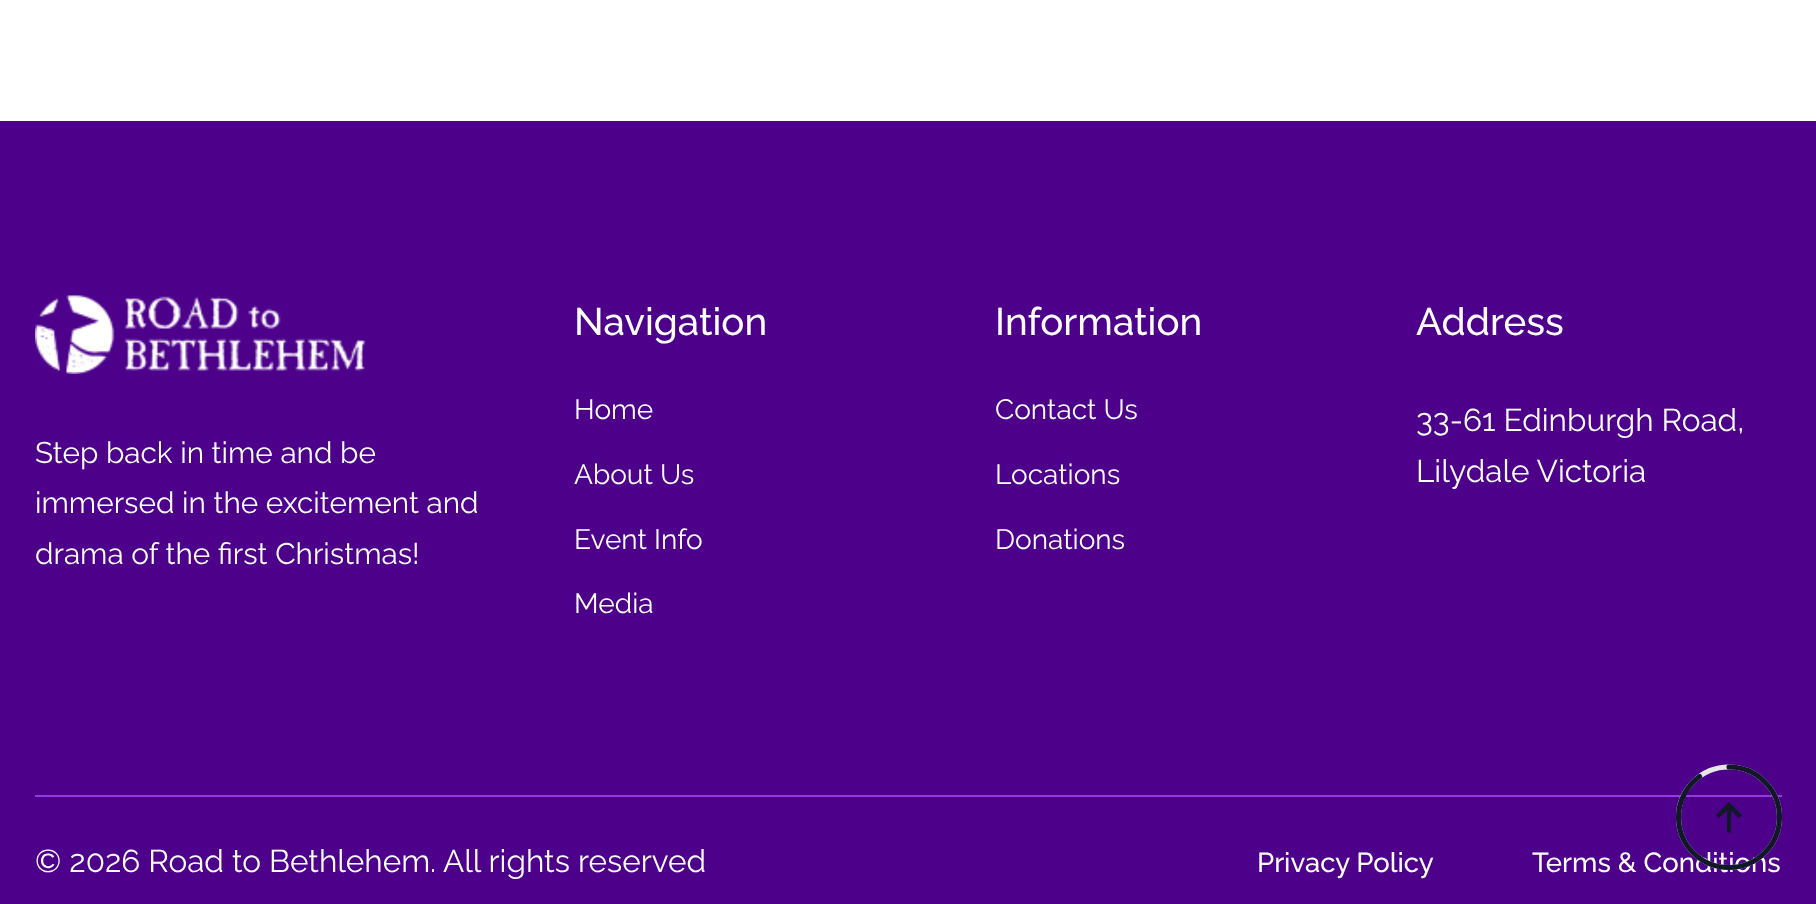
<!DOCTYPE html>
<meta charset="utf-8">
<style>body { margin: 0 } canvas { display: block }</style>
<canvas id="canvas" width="1816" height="904"></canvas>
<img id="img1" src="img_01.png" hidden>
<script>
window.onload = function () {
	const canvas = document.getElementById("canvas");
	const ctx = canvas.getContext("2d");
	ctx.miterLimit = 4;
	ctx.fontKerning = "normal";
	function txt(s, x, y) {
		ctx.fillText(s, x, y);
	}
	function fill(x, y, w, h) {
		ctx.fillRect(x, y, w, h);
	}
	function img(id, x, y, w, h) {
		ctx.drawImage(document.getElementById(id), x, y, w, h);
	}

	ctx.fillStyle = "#FFFFFF";
	fill(0, 0, 1816, 904);
	ctx.fillStyle = "#4D018B";
	fill(0, 121, 1816, 783);
	img("img1", 35, 295, 331, 79);
	ctx.fillStyle = "#111827";
	ctx.beginPath();
	ctx.moveTo(1730.5, 803.5);
	ctx.lineTo(1729, 802);
	ctx.lineTo(1716, 815);
	ctx.lineTo(1719, 818);
	ctx.lineTo(1727, 810.5);
	ctx.lineTo(1727, 832.5);
	ctx.lineTo(1731, 832.5);
	ctx.lineTo(1731, 810.5);
	ctx.lineTo(1739, 818);
	ctx.lineTo(1742, 815);
	ctx.closePath();
	ctx.fill();
	ctx.fillStyle = "#9638E2";
	fill(35, 795, 1747, 2);
	ctx.font = "29.75px Raleway";
	ctx.fillStyle = "#FFFFFF";
	txt("Step back in time and be", 35, 463);
	txt("immersed in the excitement and", 35, 513);
	txt("drama of the first Christmas!", 35, 564);
	ctx.font = "500 38.5px Raleway";
	txt("Navigation", 574, 335);
	ctx.font = "28px Raleway";
	txt("Home", 574, 419);
	txt("About Us", 574, 484);
	txt("Event Info", 574, 549);
	txt("Media", 574, 613);
	ctx.font = "500 38.5px Raleway";
	txt("Information", 995, 335);
	ctx.font = "28px Raleway";
	txt("Contact Us", 995, 419);
	txt("Locations", 995, 484);
	txt("Donations", 995, 549);
	ctx.font = "500 38.5px Raleway";
	txt("Address", 1416, 335);
	ctx.font = "31.5px Raleway";
	txt("33-61 Edinburgh Road,", 1416, 431);
	txt("Lilydale Victoria", 1416, 482);
	txt("© 2026 Road to Bethlehem.", 35, 872);
	txt("All rights reserved", 443, 872);
	ctx.font = "500 27.5px Raleway";
	txt("Privacy Policy", 1257, 872);
	txt("Terms & Conditions", 1532, 872);
	ctx.beginPath();
	ctx.moveTo(1729, 767);
	ctx.bezierCurveTo(1757, 767, 1779.5, 789.5, 1779.5, 817);
	ctx.bezierCurveTo(1779.5, 845, 1757, 867.5, 1729, 867.5);
	ctx.bezierCurveTo(1701, 867.5, 1678.5, 845, 1678.5, 817);
	ctx.bezierCurveTo(1678.5, 789.5, 1701, 767, 1729, 767);
	ctx.strokeStyle = "#E5E7EB";
	ctx.lineWidth = 5.1;
	ctx.lineCap = "round";
	ctx.stroke();
	ctx.beginPath();
	ctx.moveTo(1729, 767);
	ctx.bezierCurveTo(1757, 767, 1779.5, 789.5, 1779.5, 817);
	ctx.bezierCurveTo(1779.5, 845, 1757, 867.5, 1729, 867.5);
	ctx.bezierCurveTo(1701, 867.5, 1678.5, 845, 1678.5, 817);
	ctx.bezierCurveTo(1678.5, 800.5, 1687, 785.5, 1699.5, 776.5);
	ctx.strokeStyle = "#111827";
	ctx.stroke();
};
</script>
